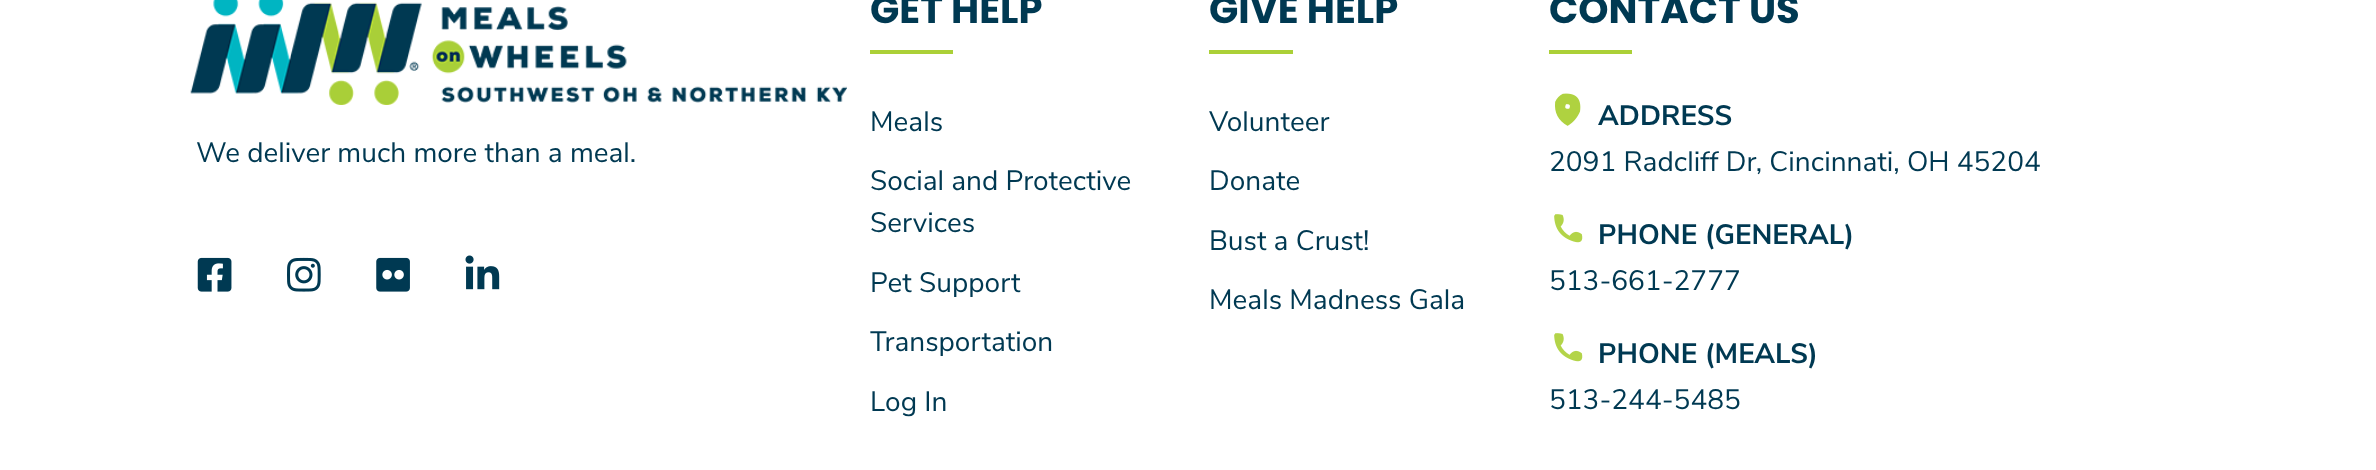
<!DOCTYPE html>
<meta charset="utf-8">
<style>body { margin: 0 } canvas { display: block }</style>
<canvas id="canvas" width="2376" height="470"></canvas>
<img id="img1" src="img_01.png" hidden>
<img id="img2" src="img_02.png" hidden>
<img id="img3" src="img_03.png" hidden>
<img id="img4" src="img_04.png" hidden>
<img id="img5" src="img_05.png" hidden>
<img id="img6" src="img_06.png" hidden>
<img id="img7" src="img_07.png" hidden>
<script>
window.onload = function () {
	const canvas = document.getElementById("canvas");
	const ctx = canvas.getContext("2d");
	ctx.miterLimit = 4;
	ctx.fontKerning = "normal";
	function txt(s, x, y) {
		ctx.fillText(s, x, y);
	}
	function fill(x, y, w, h) {
		ctx.fillRect(x, y, w, h);
	}
	function img(id, x, y, w, h) {
		ctx.drawImage(document.getElementById(id), x, y, w, h);
	}

	ctx.fillStyle = "#FFFFFF";
	fill(0, 0, 2376, 470);
	img("img1", 190, 0, 657, 105);
	img("img2", 197, 257, 35, 35);
	img("img3", 287, 257, 34, 35);
	img("img4", 376, 257, 34, 35);
	img("img5", 465, 255, 35, 35);
	ctx.fillStyle = "#ABD037";
	fill(870, 50, 83, 4);
	fill(1209, 50, 84, 4);
	fill(1549, 50, 83, 4);
	img("img6", 1555, 93, 26, 33);
	img("img7", 1554, 214, 29, 29);
	img("img7", 1554, 333, 29, 29);
	ctx.font = "28px Nunito Sans";
	ctx.fillStyle = "#003952";
	txt("We deliver much more than a meal.", 196, 162);
	ctx.font = "bold 38.5px Poppins";
	txt("GET HELP", 870, 23);
	ctx.font = "28px Nunito Sans";
	txt("Meals", 870, 131);
	txt("Social and Protective", 870, 190);
	txt("Services", 870, 232);
	txt("Pet Support", 870, 292);
	txt("Transportation", 870, 351);
	txt("Log In", 870, 411);
	ctx.font = "bold 38.5px Poppins";
	txt("GIVE HELP", 1209, 23);
	ctx.font = "28px Nunito Sans";
	txt("Volunteer", 1209, 131);
	txt("Donate", 1209, 190);
	txt("Bust a Crust!", 1209, 250);
	txt("Meals Madness Gala", 1209, 309);
	ctx.font = "bold 38.5px Poppins";
	txt("CONTACT US", 1549, 23);
	ctx.font = "bold 28px Nunito Sans";
	txt("ADDRESS", 1598, 125);
	ctx.font = "28px Nunito Sans";
	txt("2091 Radcliff Dr, Cincinnati, OH 45204", 1549, 171);
	ctx.font = "bold 28px Nunito Sans";
	txt("PHONE (GENERAL)", 1598, 244);
	ctx.font = "28px Nunito Sans";
	txt("513-661-2777", 1549, 290);
	ctx.font = "bold 28px Nunito Sans";
	txt("PHONE (MEALS)", 1598, 363);
	ctx.font = "28px Nunito Sans";
	txt("513-244-5485", 1549, 409);
};
</script>
